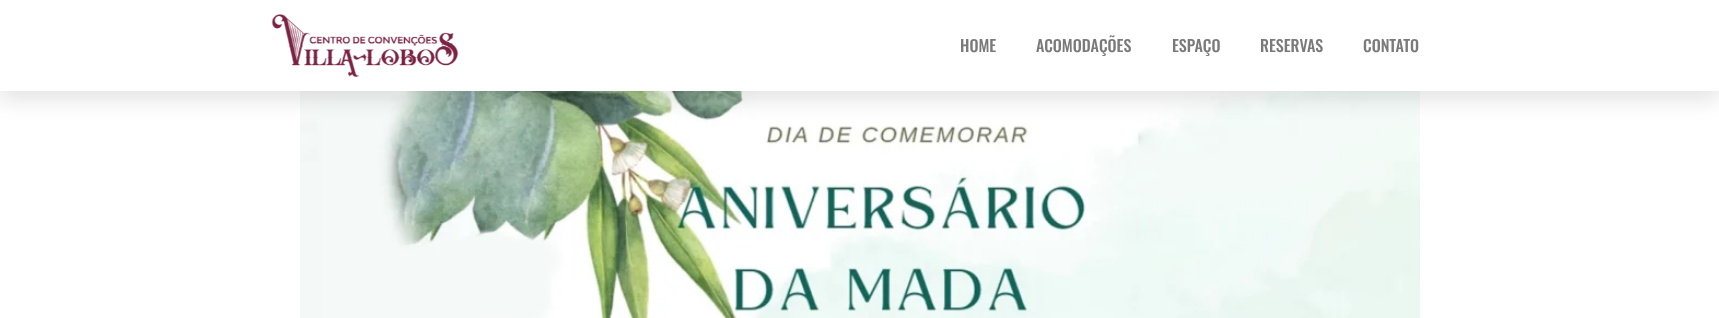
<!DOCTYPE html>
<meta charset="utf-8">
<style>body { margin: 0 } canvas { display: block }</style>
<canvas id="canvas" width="1719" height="318"></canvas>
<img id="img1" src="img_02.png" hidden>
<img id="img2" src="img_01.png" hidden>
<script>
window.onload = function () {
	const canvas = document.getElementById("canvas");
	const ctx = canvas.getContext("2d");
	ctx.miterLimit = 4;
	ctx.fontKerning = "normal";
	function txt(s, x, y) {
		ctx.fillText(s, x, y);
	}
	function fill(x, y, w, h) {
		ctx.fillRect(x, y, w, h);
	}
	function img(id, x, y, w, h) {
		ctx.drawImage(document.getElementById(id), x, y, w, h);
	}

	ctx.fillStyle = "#FFFFFF";
	fill(0, 0, 1719, 318);
	img("img1", 300, 91, 1120, 227);
	ctx.fillStyle = "rgba(0, 0, 0, 0.1)";
	ctx.filter = "blur(10px)";
	ctx.beginPath();
	ctx.rect(0, 10, 1719, 91);
	ctx.fill();
	ctx.filter = "none";
	ctx.fillStyle = "#FFFFFF";
	fill(0, 0, 1719, 91);
	img("img2", 271, 14, 188, 64);
	ctx.font = "500 16px Oswald";
	ctx.fillStyle = "#7A7A7A";
	txt("HOME", 960, 52);
	txt("ACOMODAÇÕES", 1036, 52);
	txt("ESPAÇO", 1172, 52);
	txt("RESERVAS", 1260, 52);
	txt("CONTATO", 1363, 52);
};
</script>
